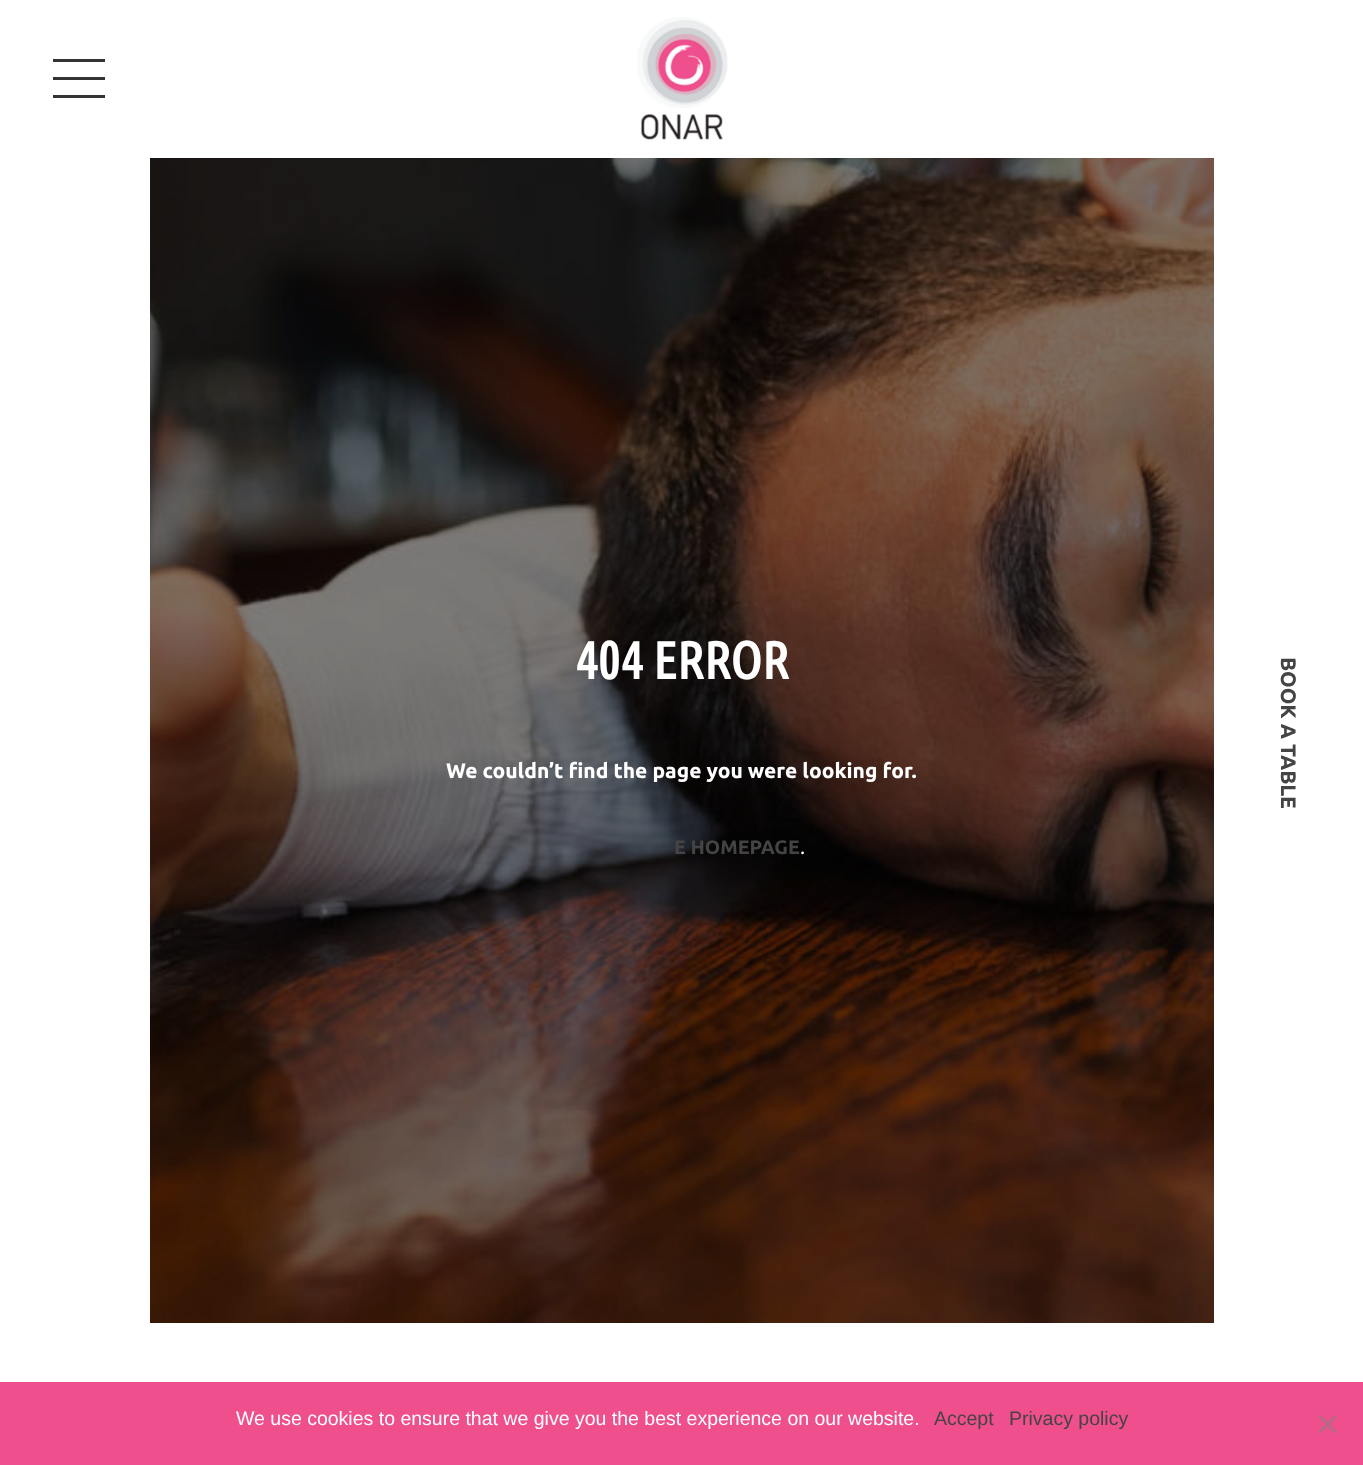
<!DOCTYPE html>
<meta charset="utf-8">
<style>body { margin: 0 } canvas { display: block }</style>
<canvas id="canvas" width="1363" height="1465"></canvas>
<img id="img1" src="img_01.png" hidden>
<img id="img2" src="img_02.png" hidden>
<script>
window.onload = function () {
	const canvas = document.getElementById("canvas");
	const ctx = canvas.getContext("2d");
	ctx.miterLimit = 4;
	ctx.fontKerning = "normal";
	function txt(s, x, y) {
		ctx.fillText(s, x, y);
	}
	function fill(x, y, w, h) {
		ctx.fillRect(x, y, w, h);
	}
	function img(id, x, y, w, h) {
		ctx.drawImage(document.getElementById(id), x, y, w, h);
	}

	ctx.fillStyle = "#FFFFFF";
	fill(0, 0, 1363, 1465);
	ctx.fillStyle = "#333333";
	fill(53, 59, 52, 3);
	fill(53, 77, 52, 3);
	fill(53, 95, 52, 3);
	img("img1", 637, 17, 91, 123);
	img("img2", 150, 158, 1064, 1165);
	ctx.fillStyle = "#EF4F8D";
	fill(0, 1382, 1363, 83);
	ctx.fillStyle = "#B86887";
	ctx.beginPath();
	ctx.moveTo(1334.5, 1415);
	ctx.lineTo(1336.5, 1417.5);
	ctx.lineTo(1320.5, 1433.5);
	ctx.lineTo(1318.5, 1431);
	ctx.closePath();
	ctx.fill();
	ctx.beginPath();
	ctx.moveTo(1318.5, 1417.5);
	ctx.lineTo(1320.5, 1415);
	ctx.lineTo(1336.5, 1431);
	ctx.lineTo(1334.5, 1433.5);
	ctx.closePath();
	ctx.fill();
	ctx.font = "bold 52.5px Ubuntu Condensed";
	ctx.fillStyle = "#FFFFFF";
	txt("404 ERROR", 575, 679);
	ctx.font = "bold 21px Ubuntu";
	txt("We couldn’t find the page you were looking for.", 446, 778);
	ctx.font = "bold 19.5px Ubuntu";
	ctx.fillStyle = "#444444";
	txt("E HOMEPAGE", 674, 854);
	ctx.font = "21px Ubuntu";
	ctx.fillStyle = "#FFFFFF";
	txt(".", 800, 854);
	ctx.font = "19.5px Liberation Sans";
	txt("We use cookies to ensure that we give you the best experience on our website.", 236, 1425);
	ctx.fillStyle = "#444444";
	txt("Accept", 934, 1425);
	txt("Privacy policy", 1009, 1425);
	ctx.font = "bold 21px Ubuntu";
	ctx.save();
	ctx.translate(1281, 657);
	ctx.rotate(90 * Math.PI / 180);
	ctx.fillText("BOOK A TABLE", 0, 0);
	ctx.restore();
};
</script>
